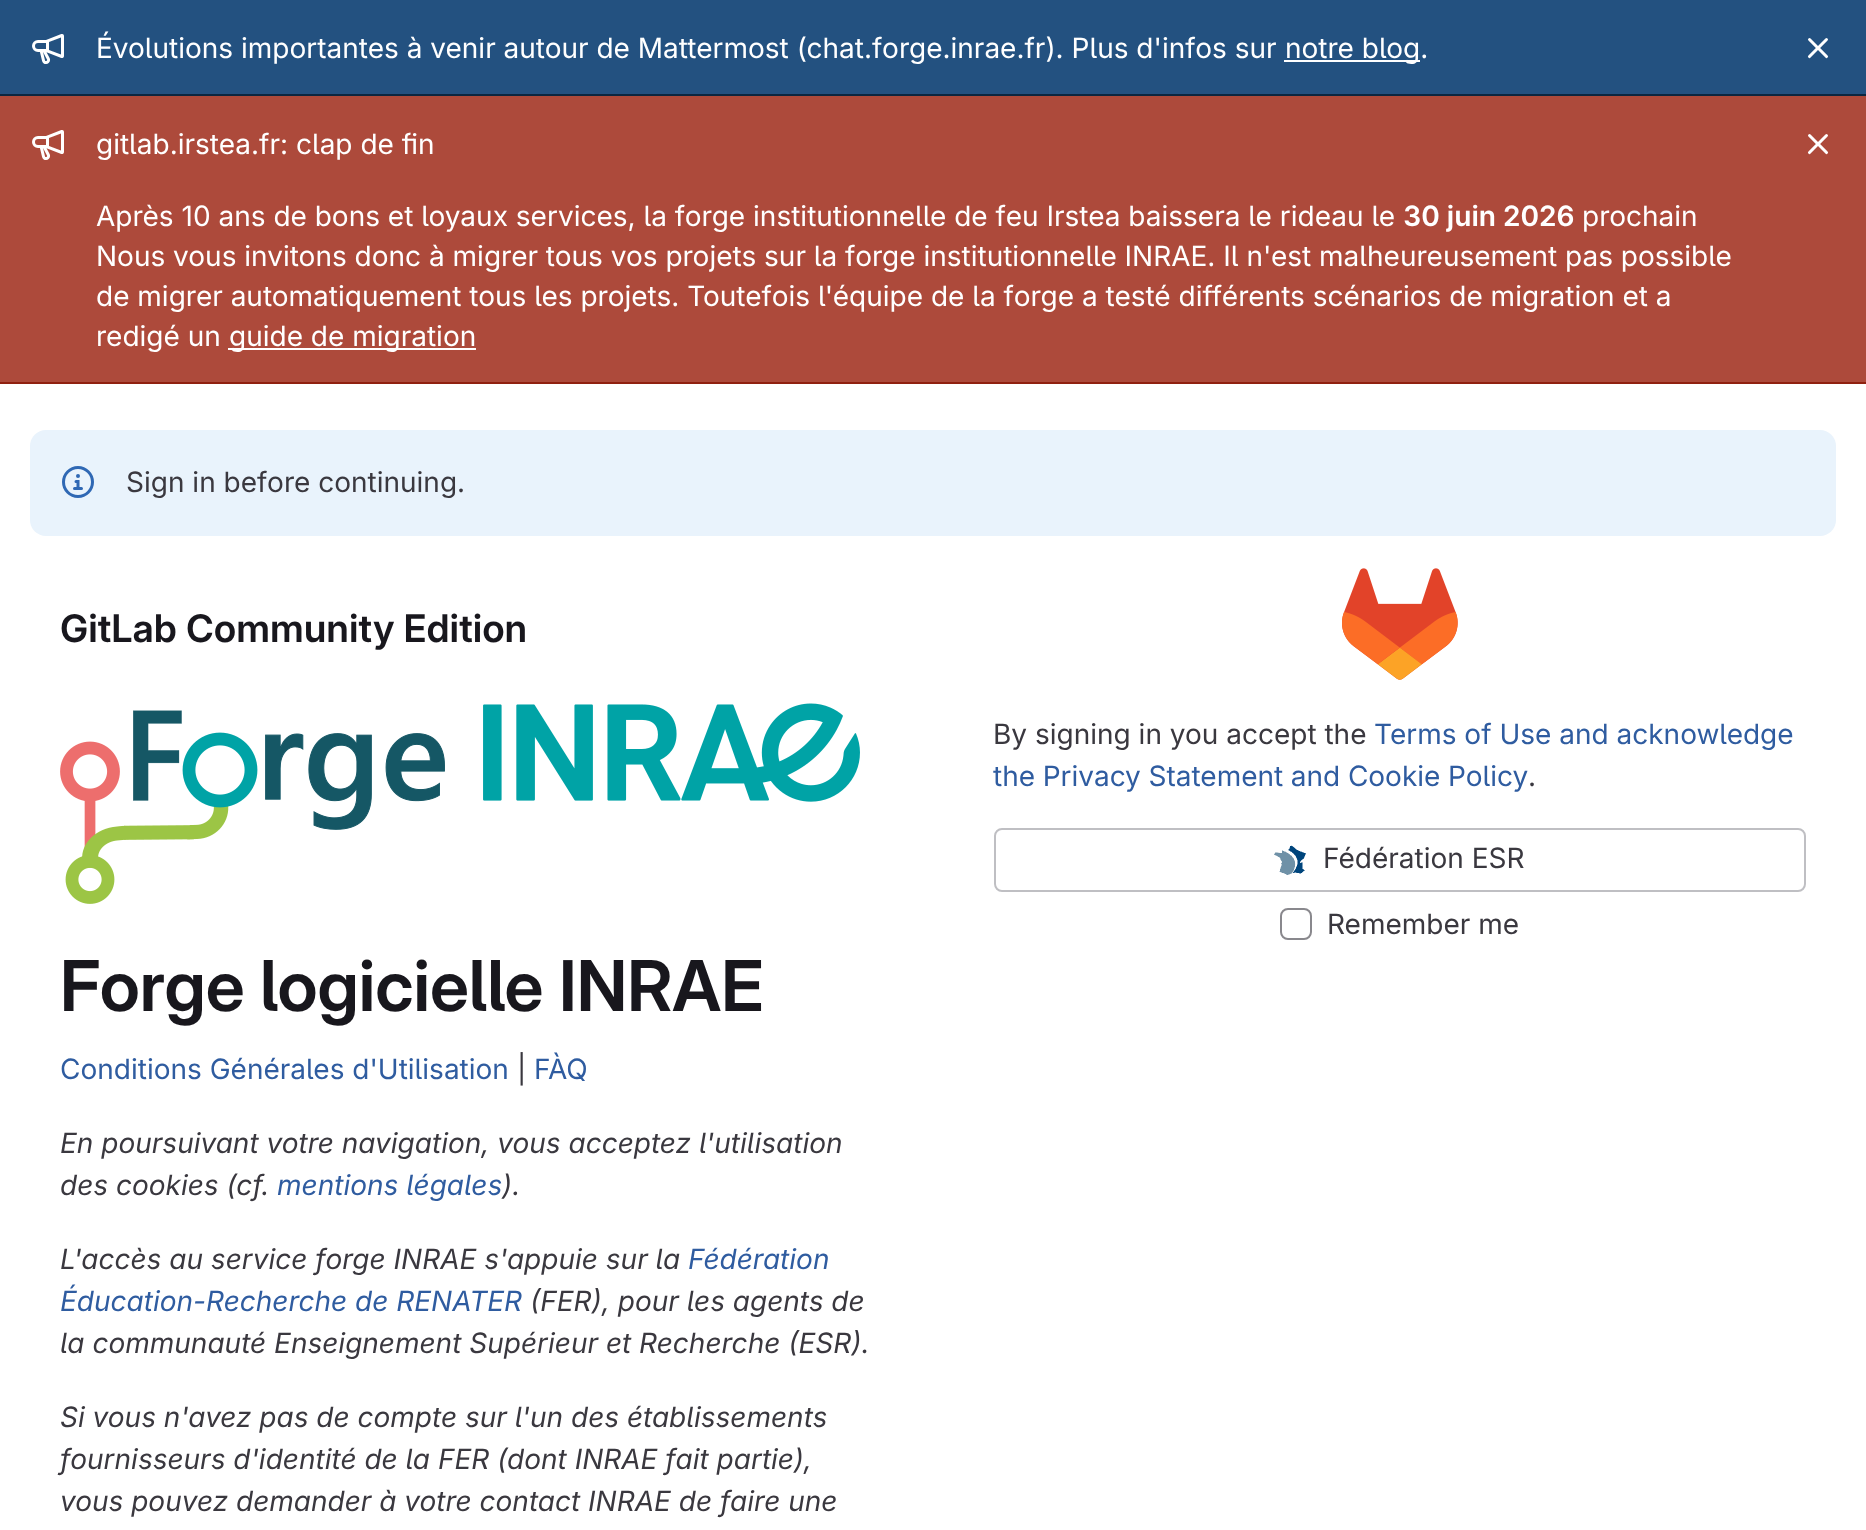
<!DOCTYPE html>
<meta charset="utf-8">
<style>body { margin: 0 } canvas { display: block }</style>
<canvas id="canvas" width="1866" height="1530"></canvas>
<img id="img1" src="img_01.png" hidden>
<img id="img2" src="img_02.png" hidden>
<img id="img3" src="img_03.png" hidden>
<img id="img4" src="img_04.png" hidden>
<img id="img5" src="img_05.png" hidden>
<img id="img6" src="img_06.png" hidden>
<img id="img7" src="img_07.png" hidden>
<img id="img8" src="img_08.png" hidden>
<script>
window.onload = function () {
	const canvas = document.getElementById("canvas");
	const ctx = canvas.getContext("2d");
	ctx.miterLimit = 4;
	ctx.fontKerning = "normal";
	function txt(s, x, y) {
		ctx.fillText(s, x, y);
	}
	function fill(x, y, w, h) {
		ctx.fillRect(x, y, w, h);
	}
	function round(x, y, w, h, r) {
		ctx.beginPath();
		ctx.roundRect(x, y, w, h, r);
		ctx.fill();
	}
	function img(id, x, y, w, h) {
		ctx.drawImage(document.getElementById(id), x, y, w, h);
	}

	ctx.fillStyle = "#FFFFFF";
	fill(0, 0, 1866, 1530);
	ctx.fillStyle = "#235180";
	fill(0, 0, 1866, 94);
	ctx.fillStyle = "#0B2640";
	fill(0, 94, 1866, 2);
	img("img1", 32, 34, 32, 30);
	ctx.fillStyle = "#FFFFFF";
	fill(1284, 60, 136, 2);
	img("img2", 1807, 38, 22, 21);
	ctx.fillStyle = "#AD4A3B";
	fill(0, 96, 1866, 286);
	ctx.fillStyle = "#8F2110";
	fill(0, 382, 1866, 2);
	img("img3", 32, 130, 32, 30);
	ctx.fillStyle = "#FFFFFF";
	fill(228, 348, 248, 2);
	img("img4", 1807, 134, 22, 21);
	ctx.fillStyle = "#E9F3FC";
	round(30, 430, 1806, 106, 16);
	img("img5", 62, 466, 32, 32);
	img("img6", 60, 703, 800, 201);
	img("img7", 1342, 568, 116, 112);
	ctx.beginPath();
	ctx.roundRect(995, 829, 810, 62, 7);
	ctx.strokeStyle = "#BFBFC3";
	ctx.lineWidth = 2;
	ctx.stroke();
	img("img8", 1274, 845, 32, 30);
	ctx.beginPath();
	ctx.roundRect(1281, 909, 30, 30, 7);
	ctx.strokeStyle = "#89888D";
	ctx.stroke();
	ctx.font = "28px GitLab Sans";
	ctx.fillStyle = "#FFFFFF";
	txt("Évolutions importantes à venir autour de Mattermost (chat.forge.inrae.fr). Plus d'infos sur", 96, 58);
	txt("notre blog.", 1285, 58);
	txt("gitlab.irstea.fr: clap de fin", 96, 154);
	txt("Après 10 ans de bons et loyaux services, la forge institutionnelle de feu Irstea baissera le rideau le", 96, 226);
	ctx.font = "600 28px GitLab Sans";
	txt("30 juin 2026", 1403, 226);
	ctx.font = "28px GitLab Sans";
	txt("prochain", 1582, 226);
	txt("Nous vous invitons donc à migrer tous vos projets sur la forge institutionnelle INRAE. Il n'est malheureusement pas possible", 96, 266);
	txt("de migrer automatiquement tous les projets. Toutefois l'équipe de la forge a testé différents scénarios de migration et a", 96, 306);
	txt("redigé un", 96, 346);
	txt("guide de migration", 229, 346);
	ctx.fillStyle = "#3A383F";
	txt("Sign in before continuing.", 126, 492);
	ctx.font = "600 38px 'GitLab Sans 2'";
	ctx.fillStyle = "#18171D";
	txt("GitLab Community Edition", 60, 642);
	ctx.font = "600 70px 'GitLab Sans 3'";
	txt("Forge logicielle INRAE", 60, 1011);
	ctx.font = "28px GitLab Sans";
	ctx.fillStyle = "#2F5CA0";
	txt("Conditions Générales d'Utilisation", 60, 1079);
	ctx.fillStyle = "#3A383F";
	txt("|", 517, 1079);
	ctx.fillStyle = "#2F5CA0";
	txt("FÀQ", 534, 1079);
	ctx.font = "italic 28px GitLab Sans";
	ctx.fillStyle = "#3A383F";
	txt("En poursuivant votre navigation, vous acceptez l'utilisation", 60, 1153);
	txt("des cookies (cf.", 60, 1195);
	ctx.fillStyle = "#2F5CA0";
	txt("mentions légales", 277, 1195);
	ctx.fillStyle = "#3A383F";
	txt(").", 502, 1195);
	txt("L'accès au service forge INRAE s'appuie sur la", 60, 1269);
	ctx.fillStyle = "#2F5CA0";
	txt("Fédération", 688, 1269);
	txt("Éducation-Recherche de RENATER", 60, 1311);
	ctx.fillStyle = "#3A383F";
	txt("(FER), pour les agents de", 530, 1311);
	txt("la communauté Enseignement Supérieur et Recherche (ESR).", 60, 1353);
	txt("Si vous n'avez pas de compte sur l'un des établissements", 60, 1427);
	txt("fournisseurs d'identité de la FER (dont INRAE fait partie),", 60, 1469);
	txt("vous pouvez demander à votre contact INRAE de faire une", 60, 1511);
	ctx.font = "28px GitLab Sans";
	txt("By signing in you accept the", 993, 744);
	ctx.fillStyle = "#2F5CA0";
	txt("Terms of Use and acknowledge", 1374, 744);
	ctx.wordSpacing = "-0.25px";
	txt("the Privacy Statement and Cookie Policy", 993, 786);
	ctx.wordSpacing = "0px";
	ctx.fillStyle = "#3A383F";
	txt(".", 1528, 786);
	txt("Fédération ESR", 1323, 868);
	txt("Remember me", 1327, 934);
};
</script>
